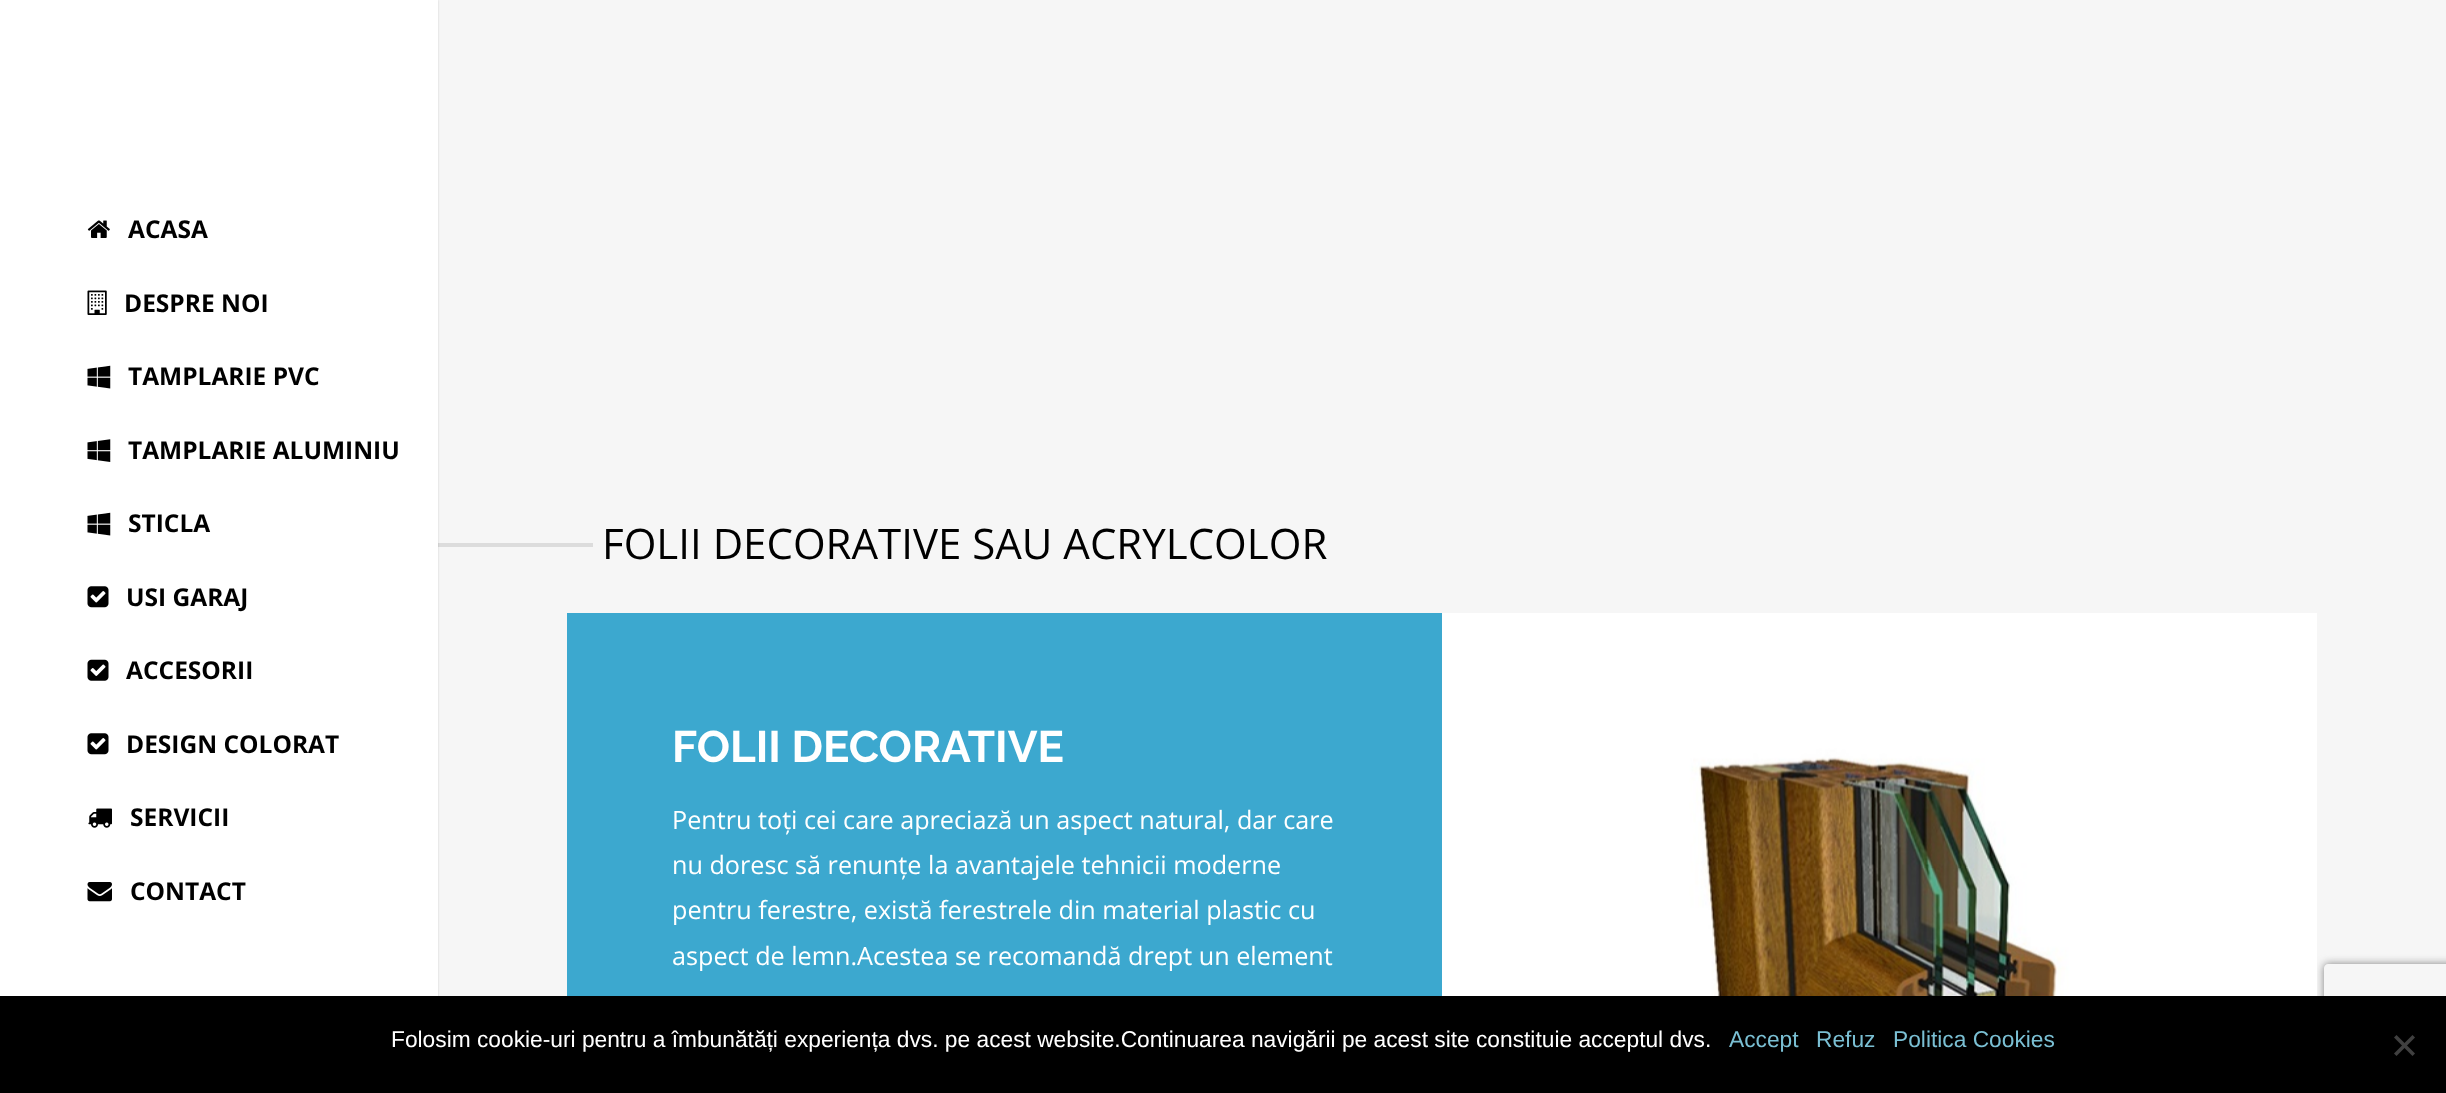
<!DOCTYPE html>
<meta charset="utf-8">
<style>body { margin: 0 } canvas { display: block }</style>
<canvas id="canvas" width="2446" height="1093"></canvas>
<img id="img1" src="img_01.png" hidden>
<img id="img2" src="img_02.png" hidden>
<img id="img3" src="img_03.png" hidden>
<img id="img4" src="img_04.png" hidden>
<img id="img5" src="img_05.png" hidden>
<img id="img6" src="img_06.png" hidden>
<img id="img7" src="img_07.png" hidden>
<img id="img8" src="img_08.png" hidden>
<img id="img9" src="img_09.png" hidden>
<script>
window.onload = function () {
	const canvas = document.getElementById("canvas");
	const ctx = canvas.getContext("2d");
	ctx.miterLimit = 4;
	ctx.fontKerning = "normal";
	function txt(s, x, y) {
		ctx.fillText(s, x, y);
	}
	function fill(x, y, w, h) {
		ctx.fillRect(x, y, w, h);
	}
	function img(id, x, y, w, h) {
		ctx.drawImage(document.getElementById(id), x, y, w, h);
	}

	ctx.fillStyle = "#F6F6F6";
	fill(0, 0, 2446, 1093);
	ctx.fillStyle = "#DCDCDC";
	fill(438, 543, 155, 4);
	ctx.fillStyle = "rgba(0, 0, 0, 0.15)";
	ctx.filter = "blur(1px)";
	ctx.beginPath();
	ctx.rect(0, 0, 438, 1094);
	ctx.fill();
	ctx.filter = "none";
	ctx.fillStyle = "#FFFFFF";
	fill(0, 0, 438, 996);
	img("img1", 87, 220, 23, 18);
	img("img2", 87, 290, 20, 25);
	img("img3", 87, 365, 24, 24);
	img("img4", 87, 439, 24, 23);
	img("img3", 87, 512, 24, 24);
	img("img5", 87, 586, 22, 22);
	img("img6", 87, 659, 22, 22);
	img("img5", 87, 733, 22, 22);
	img("img7", 88, 808, 24, 20);
	img("img8", 87, 882, 25, 20);
	ctx.fillStyle = "#3CA8CF";
	fill(567, 613, 875, 383);
	ctx.save();
	ctx.beginPath();
	ctx.moveTo(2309, 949);
	ctx.lineTo(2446, 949);
	ctx.lineTo(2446, 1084);
	ctx.lineTo(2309, 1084);
	ctx.closePath();
	ctx.moveTo(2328, 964);
	ctx.lineTo(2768, 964);
	ctx.bezierCurveTo(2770, 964, 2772, 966, 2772, 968);
	ctx.lineTo(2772, 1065);
	ctx.bezierCurveTo(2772, 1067, 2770, 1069, 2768, 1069);
	ctx.lineTo(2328, 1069);
	ctx.bezierCurveTo(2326, 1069, 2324, 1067, 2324, 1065);
	ctx.lineTo(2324, 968);
	ctx.bezierCurveTo(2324, 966, 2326, 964, 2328, 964);
	ctx.closePath();
	ctx.clip("evenodd");
	ctx.fillStyle = "#808080";
	ctx.filter = "blur(4.5px)";
	ctx.beginPath();
	ctx.roundRect(2324, 964, 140, 105, 4);
	ctx.fill();
	ctx.filter = "none";
	ctx.restore();
	img("img9", 1442, 613, 875, 383);
	ctx.fillStyle = "#000000";
	fill(0, 996, 2446, 97);
	ctx.fillStyle = "#404040";
	ctx.beginPath();
	ctx.moveTo(2412.5, 1035);
	ctx.lineTo(2415, 1037.5);
	ctx.lineTo(2396.5, 1056);
	ctx.lineTo(2394, 1053.5);
	ctx.closePath();
	ctx.fill();
	ctx.beginPath();
	ctx.moveTo(2394, 1037.5);
	ctx.lineTo(2396.5, 1035);
	ctx.lineTo(2415, 1053.5);
	ctx.lineTo(2412.5, 1056);
	ctx.closePath();
	ctx.fill();
	ctx.font = "bold 24.5px Open Sans";
	ctx.fillStyle = "#000000";
	txt("ACASA", 128, 238);
	txt("DESPRE NOI", 124, 312);
	txt("TAMPLARIE PVC", 128, 385);
	txt("TAMPLARIE ALUMINIU", 128, 459);
	txt("STICLA", 128, 532);
	txt("USI GARAJ", 126, 606);
	txt("ACCESORII", 126, 679);
	txt("DESIGN COLORAT", 126, 753);
	txt("SERVICII", 130, 826);
	txt("CONTACT", 130, 900);
	ctx.font = "42px Open Sans";
	txt("FOLII DECORATIVE SAU ACRYLCOLOR", 602, 559);
	ctx.font = "bold 44px Raleway";
	ctx.fillStyle = "#FFFFFF";
	txt("FOLII DECORATIVE", 672, 762);
	ctx.font = "25.2px Open Sans";
	txt("Pentru toți cei care apreciază un aspect natural, dar care", 672, 829);
	txt("nu doresc să renunțe la avantajele tehnicii moderne", 672, 874);
	txt("pentru ferestre, există ferestrele din material plastic cu", 672, 919);
	txt("aspect de lemn.Acestea se recomandă drept un element", 672, 965);
	ctx.font = "22.75px Liberation Sans";
	txt("Folosim cookie-uri pentru a îmbunătăți experiența dvs. pe acest website.Continuarea navigării pe acest site constituie acceptul dvs.", 391, 1047);
	ctx.fillStyle = "#7ABFD3";
	txt("Accept", 1729, 1047);
	txt("Refuz", 1816, 1047);
	txt("Politica Cookies", 1893, 1047);
};
</script>
